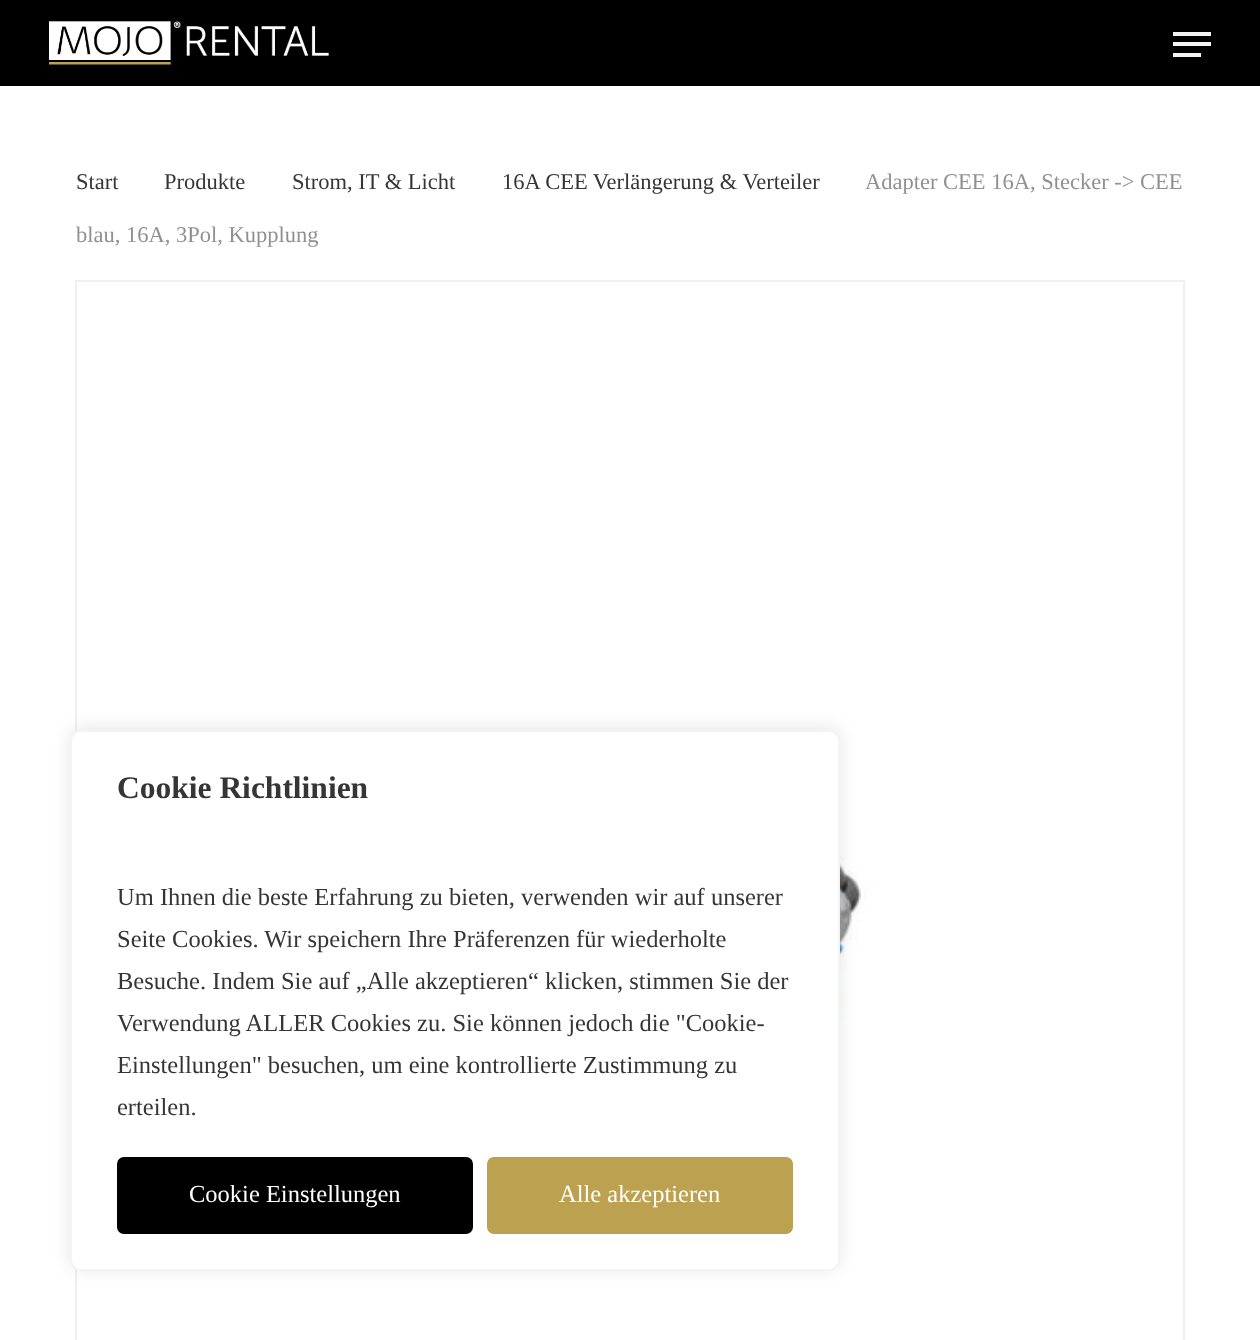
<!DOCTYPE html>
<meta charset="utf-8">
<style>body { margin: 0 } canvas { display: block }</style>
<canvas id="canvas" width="1260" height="1340"></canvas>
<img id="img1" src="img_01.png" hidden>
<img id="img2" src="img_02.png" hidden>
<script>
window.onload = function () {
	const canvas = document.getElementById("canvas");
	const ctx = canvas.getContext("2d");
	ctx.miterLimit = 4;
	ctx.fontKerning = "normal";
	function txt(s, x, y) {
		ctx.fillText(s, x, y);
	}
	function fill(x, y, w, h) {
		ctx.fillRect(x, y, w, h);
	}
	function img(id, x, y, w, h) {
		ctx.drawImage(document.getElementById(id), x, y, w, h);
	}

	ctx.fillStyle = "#FFFFFF";
	fill(0, 0, 1260, 1340);
	ctx.fillStyle = "#000000";
	fill(0, 0, 1260, 86);
	img("img1", 49, 21, 280, 44);
	ctx.fillStyle = "#F2F2F2";
	fill(1173, 32, 38, 4);
	fill(1173, 53, 28, 4);
	fill(1173, 42, 38, 4);
	ctx.strokeStyle = "#F0F0F0";
	ctx.lineWidth = 2;
	ctx.strokeRect(76, 281, 1108, 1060);
	img("img2", 77, 282, 1106, 1058);
	ctx.fillStyle = "rgba(172, 171, 171, 0.3)";
	ctx.filter = "blur(9px)";
	ctx.beginPath();
	ctx.roundRect(70, 728, 770, 541, 11);
	ctx.fill();
	ctx.filter = "none";
	ctx.fillStyle = "#FFFFFF";
	ctx.beginPath();
	ctx.roundRect(71, 731, 768, 539, 10);
	ctx.fill();
	ctx.strokeStyle = "#F4F4F4";
	ctx.stroke();
	ctx.fillStyle = "#000000";
	ctx.beginPath();
	ctx.roundRect(119, 1159, 352, 73, 5);
	ctx.fill();
	ctx.strokeStyle = "#000000";
	ctx.lineWidth = 4;
	ctx.stroke();
	ctx.fillStyle = "#BCA150";
	ctx.beginPath();
	ctx.roundRect(489, 1159, 302, 73, 5);
	ctx.fill();
	ctx.strokeStyle = "#BCA150";
	ctx.stroke();
	ctx.font = "22.5px Liberation Serif";
	ctx.fillStyle = "#353535";
	txt("Start", 76, 189);
	txt("Produkte", 164, 189);
	txt("Strom, IT & Licht", 292, 189);
	txt("16A CEE Verlängerung & Verteiler", 502, 189);
	ctx.fillStyle = "#909090";
	txt("Adapter CEE 16A, Stecker -> CEE", 865, 189);
	txt("blau, 16A, 3Pol, Kupplung", 76, 242);
	ctx.font = "bold 31.5px Liberation Serif";
	ctx.fillStyle = "#353535";
	txt("Cookie Richtlinien", 117, 798);
	ctx.font = "24.5px Liberation Serif";
	txt("Um Ihnen die beste Erfahrung zu bieten, verwenden wir auf unserer", 117, 905);
	txt("Seite Cookies. Wir speichern Ihre Präferenzen für wiederholte", 117, 947);
	txt("Besuche. Indem Sie auf „Alle akzeptieren“ klicken, stimmen Sie der", 117, 989);
	txt("Verwendung ALLER Cookies zu. Sie können jedoch die \"Cookie-", 117, 1031);
	txt("Einstellungen\" besuchen, um eine kontrollierte Zustimmung zu", 117, 1073);
	txt("erteilen.", 117, 1115);
	ctx.fillStyle = "#FFFFFF";
	txt("Cookie Einstellungen", 189, 1202);
	txt("Alle akzeptieren", 559, 1202);
};
</script>
